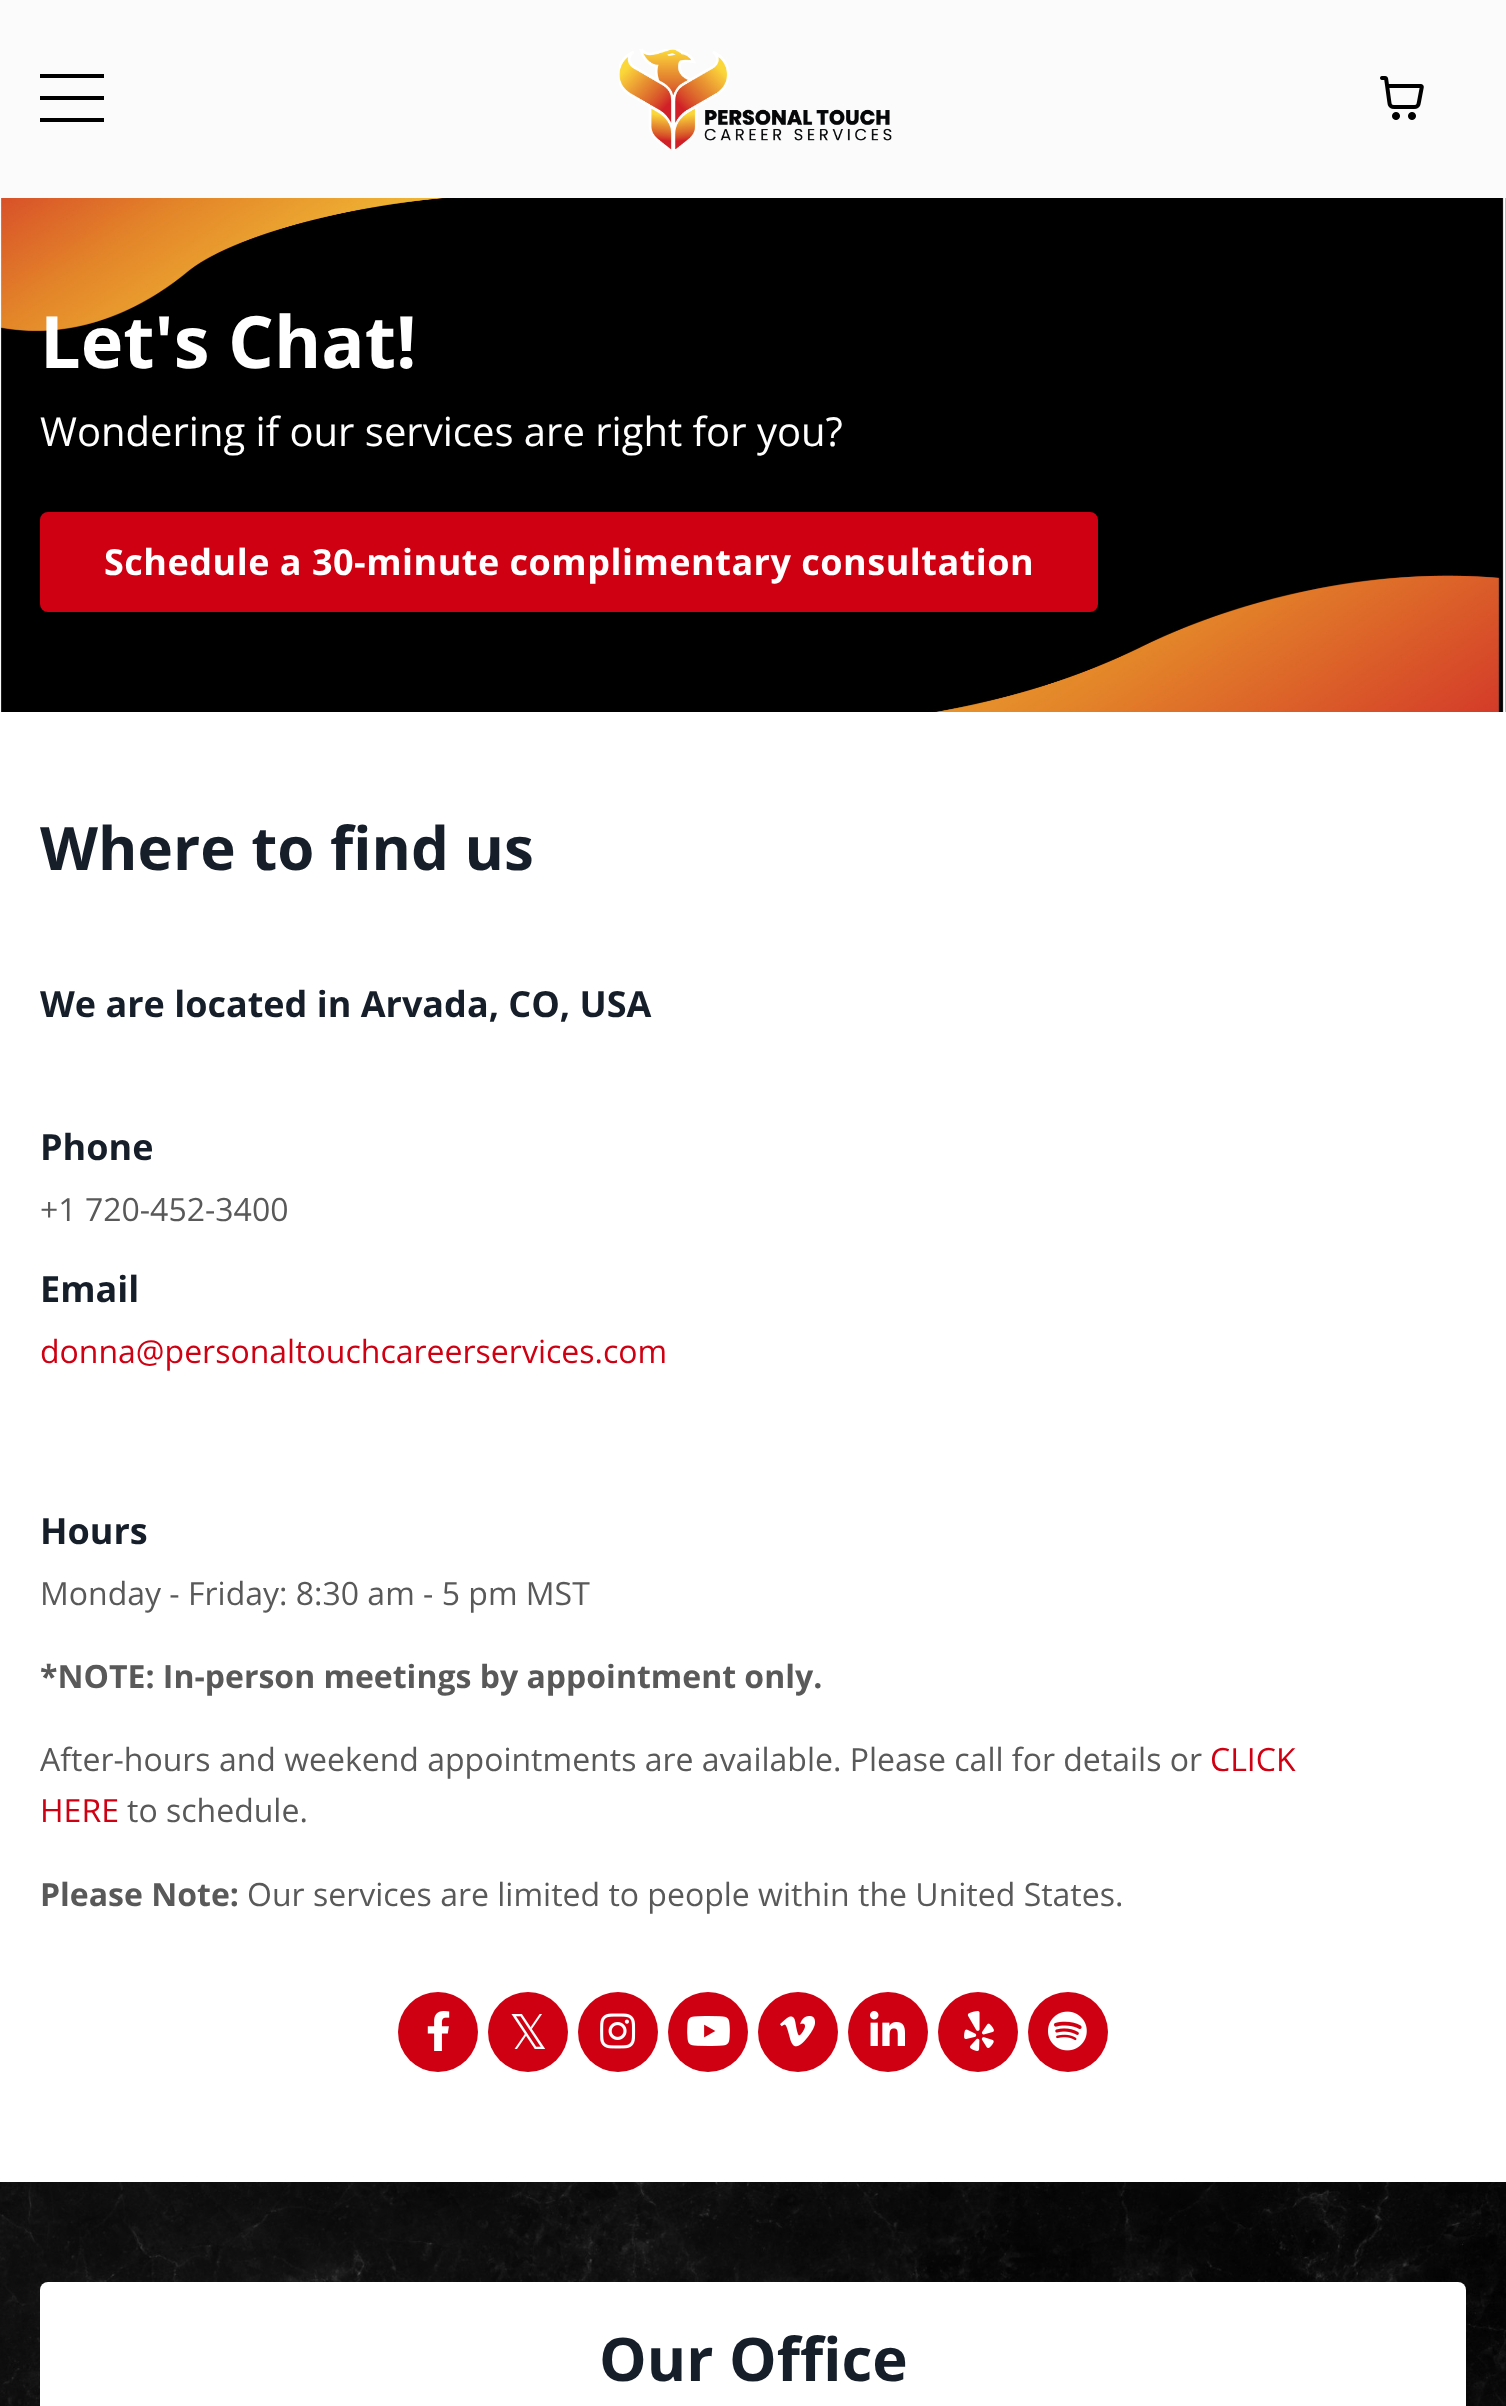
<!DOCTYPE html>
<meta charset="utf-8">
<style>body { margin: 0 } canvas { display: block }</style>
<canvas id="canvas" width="1506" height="2406"></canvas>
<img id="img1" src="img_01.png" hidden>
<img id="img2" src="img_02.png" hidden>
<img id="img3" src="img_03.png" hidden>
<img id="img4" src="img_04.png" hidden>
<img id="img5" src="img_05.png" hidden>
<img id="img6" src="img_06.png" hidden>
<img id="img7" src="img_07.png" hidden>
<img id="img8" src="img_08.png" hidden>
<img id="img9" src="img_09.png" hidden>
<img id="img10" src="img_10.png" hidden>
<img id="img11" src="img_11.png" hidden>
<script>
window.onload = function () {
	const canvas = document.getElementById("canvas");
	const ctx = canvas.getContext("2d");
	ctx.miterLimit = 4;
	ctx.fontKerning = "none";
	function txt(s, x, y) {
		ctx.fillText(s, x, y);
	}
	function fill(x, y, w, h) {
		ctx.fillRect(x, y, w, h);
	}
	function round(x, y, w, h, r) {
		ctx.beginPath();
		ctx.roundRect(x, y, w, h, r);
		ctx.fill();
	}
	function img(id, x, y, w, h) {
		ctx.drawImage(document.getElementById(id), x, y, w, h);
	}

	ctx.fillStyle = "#FFFFFF";
	fill(0, 0, 1506, 2406);
	ctx.fillStyle = "#FBFBFC";
	fill(0, 0, 1506, 198);
	ctx.fillStyle = "#000000";
	fill(40, 74, 64, 4);
	fill(40, 96, 64, 4);
	fill(40, 118, 64, 4);
	img("img1", 619, 49, 273, 101);
	img("img2", 1380, 76, 44, 44);
	img("img3", 0, 198, 1506, 514);
	ctx.fillStyle = "#D00013";
	ctx.beginPath();
	ctx.roundRect(42, 514, 1054, 96, 6);
	ctx.fill();
	ctx.strokeStyle = "#D00013";
	ctx.lineWidth = 4;
	ctx.stroke();
	ctx.beginPath();
	ctx.arc(438, 2032, 40, 0, Math.PI * 2);
	ctx.fill();
	img("img4", 427, 2011, 23, 40);
	ctx.beginPath();
	ctx.arc(528, 2032, 40, 0, Math.PI * 2);
	ctx.fill();
	ctx.beginPath();
	ctx.arc(618, 2032, 40, 0, Math.PI * 2);
	ctx.fill();
	img("img5", 600, 2013, 36, 36);
	ctx.beginPath();
	ctx.arc(708, 2032, 40, 0, Math.PI * 2);
	ctx.fill();
	img("img6", 687, 2016, 43, 30);
	ctx.beginPath();
	ctx.arc(798, 2032, 40, 0, Math.PI * 2);
	ctx.fill();
	img("img7", 780, 2016, 35, 31);
	ctx.beginPath();
	ctx.arc(888, 2032, 40, 0, Math.PI * 2);
	ctx.fill();
	img("img8", 870, 2011, 35, 35);
	ctx.beginPath();
	ctx.arc(978, 2032, 40, 0, Math.PI * 2);
	ctx.fill();
	img("img9", 964, 2011, 30, 40);
	ctx.beginPath();
	ctx.arc(1068, 2032, 40, 0, Math.PI * 2);
	ctx.fill();
	img("img10", 1048, 2011, 39, 40);
	img("img11", 0, 2182, 1506, 224);
	ctx.fillStyle = "#FFFFFF";
	round(40, 2282, 1426, 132, 8);
	ctx.font = "bold 72px Open Sans";
	txt("Let's Chat!", 40, 368);
	ctx.font = "40px Open Sans";
	txt("Wondering if our services are right for you?", 40, 446);
	ctx.letterSpacing = "0.5px";
	ctx.font = "bold 36px Open Sans";
	txt("Schedule a 30-minute complimentary consultation", 104, 575);
	ctx.letterSpacing = "0px";
	ctx.font = "bold 60px Open Sans";
	ctx.fillStyle = "#161E2A";
	txt("Where to find us", 40, 870);
	ctx.font = "bold 36px Open Sans";
	txt("We are located in Arvada, CO, USA", 40, 1017);
	txt("Phone", 40, 1160);
	ctx.font = "32px Open Sans";
	ctx.fillStyle = "#595959";
	txt("+1 720-452-3400", 40, 1221);
	ctx.font = "bold 36px Open Sans";
	ctx.fillStyle = "#161E2A";
	txt("Email", 40, 1302);
	ctx.font = "32px Open Sans";
	ctx.fillStyle = "#D00013";
	txt("donna@personaltouchcareerservices.com", 40, 1363);
	ctx.font = "bold 36px Open Sans";
	ctx.fillStyle = "#161E2A";
	txt("Hours", 40, 1544);
	ctx.font = "32px Open Sans";
	ctx.fillStyle = "#595959";
	txt("Monday - Friday: 8:30 am - 5 pm MST", 40, 1605);
	ctx.font = "bold 32px Open Sans";
	txt("*NOTE: In-person meetings by appointment only.", 40, 1688);
	ctx.font = "32px Open Sans";
	txt("After-hours and weekend appointments are available. Please call for details or", 40, 1771);
	ctx.fillStyle = "#D00013";
	txt("CLICK", 1210, 1771);
	txt("HERE", 40, 1822);
	ctx.fillStyle = "#595959";
	txt("to schedule.", 127, 1822);
	ctx.font = "bold 32px Open Sans";
	txt("Please Note:", 40, 1906);
	ctx.font = "32px Open Sans";
	txt("Our services are limited to people within the United States.", 247, 1906);
	ctx.font = "48px DejaVu Sans";
	ctx.fillStyle = "#FFFFFF";
	txt("𝕏", 509, 2049);
	ctx.font = "bold 60px Open Sans";
	ctx.fillStyle = "#161E2A";
	txt("Our Office", 599, 2381);
};
</script>
